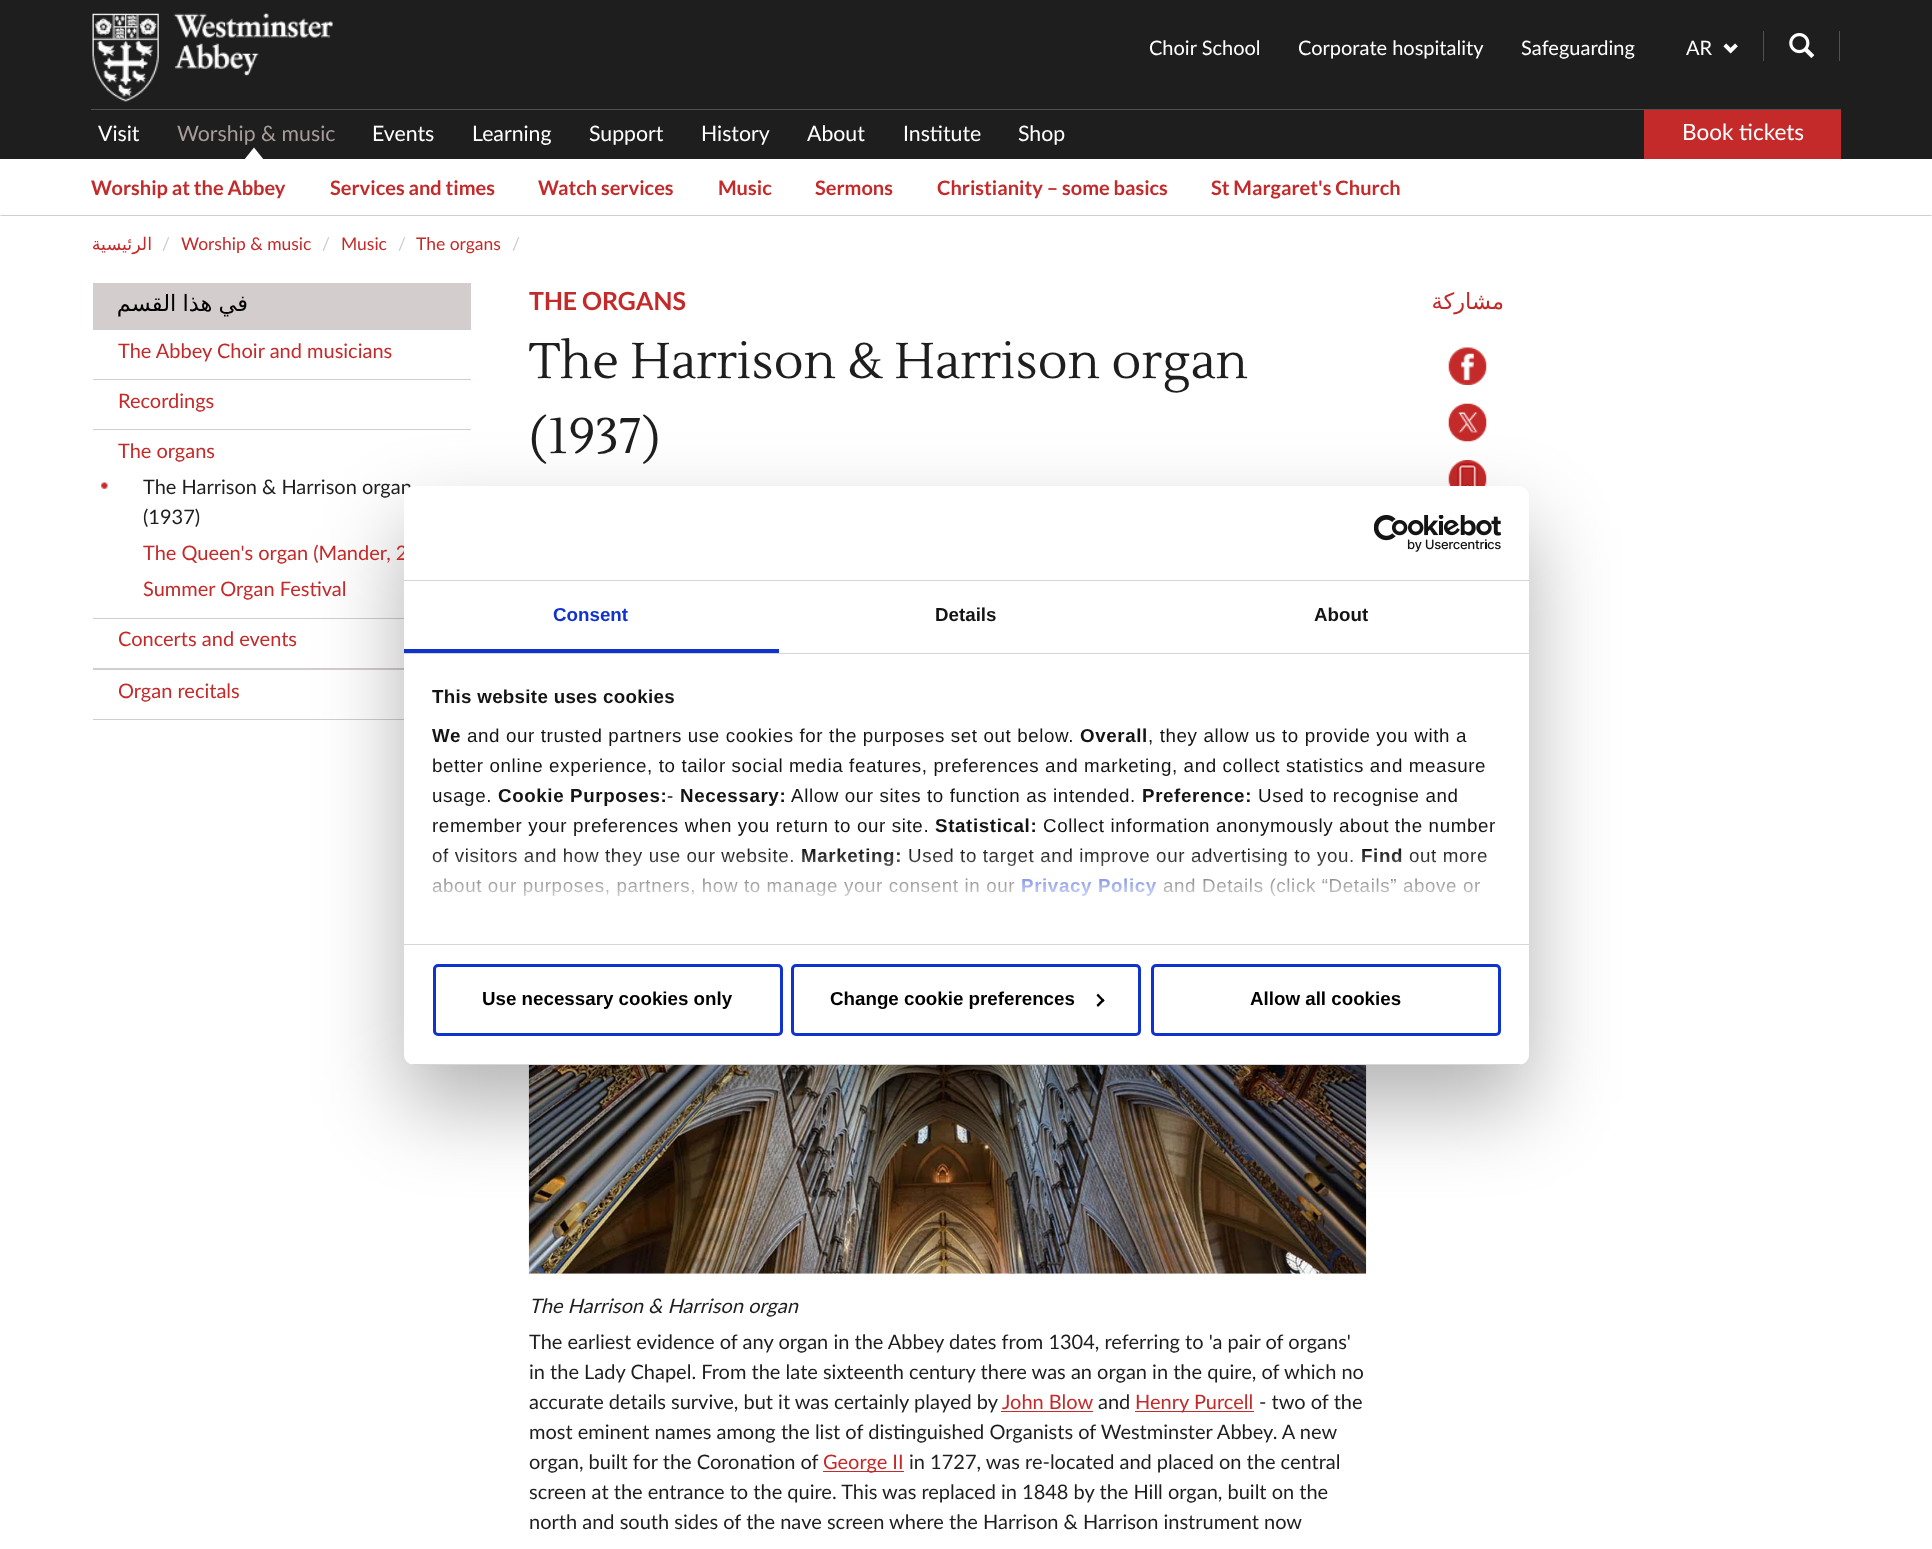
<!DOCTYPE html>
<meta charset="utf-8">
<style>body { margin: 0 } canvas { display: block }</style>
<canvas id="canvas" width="1932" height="1549"></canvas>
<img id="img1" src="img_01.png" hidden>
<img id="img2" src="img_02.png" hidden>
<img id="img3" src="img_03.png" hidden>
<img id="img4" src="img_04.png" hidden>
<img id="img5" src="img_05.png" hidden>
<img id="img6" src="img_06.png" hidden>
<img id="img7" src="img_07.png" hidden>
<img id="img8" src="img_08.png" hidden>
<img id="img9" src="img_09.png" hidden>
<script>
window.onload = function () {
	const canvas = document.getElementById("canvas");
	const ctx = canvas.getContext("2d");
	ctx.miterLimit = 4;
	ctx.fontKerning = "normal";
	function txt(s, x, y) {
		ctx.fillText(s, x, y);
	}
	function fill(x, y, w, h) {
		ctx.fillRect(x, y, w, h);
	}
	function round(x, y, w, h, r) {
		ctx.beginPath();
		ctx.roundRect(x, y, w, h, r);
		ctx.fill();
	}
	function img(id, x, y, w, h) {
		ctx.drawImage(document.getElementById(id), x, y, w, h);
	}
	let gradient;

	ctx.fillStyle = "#1E1E1E";
	fill(0, 0, 1932, 1549);
	ctx.fillStyle = "#544E4E";
	fill(91, 109, 1750, 1);
	ctx.fillStyle = "#C42A2A";
	fill(1644, 110, 197, 49);
	ctx.fillStyle = "#FFFFFF";
	fill(0, 159, 1932, 1390);
	ctx.beginPath();
	ctx.moveTo(264, 160);
	ctx.lineTo(244, 160);
	ctx.lineTo(254, 147.5);
	ctx.closePath();
	ctx.fill();
	img("img1", 92, 13, 241, 89);
	img("img2", 1723, 43, 15, 11);
	ctx.fillStyle = "#544E4E";
	fill(1839, 31, 1, 30);
	fill(1763, 31, 1, 30);
	img("img3", 1789, 33, 26, 25);
	ctx.fillStyle = "#D3CDCD";
	ctx.beginPath();
	ctx.moveTo(1932, 216);
	ctx.lineTo(0, 216);
	ctx.lineTo(1, 215);
	ctx.lineTo(1931, 215);
	ctx.closePath();
	ctx.fill();
	fill(93, 283, 378, 47);
	fill(93, 379, 378, 1);
	fill(93, 429, 378, 1);
	fill(93, 618, 311, 1);
	img("img4", 101, 482, 7, 7);
	fill(93, 668, 311, 2);
	fill(93, 719, 311, 1);
	img("img5", 528, 1065, 839, 209);
	ctx.fillStyle = "#C42A2A";
	fill(1001, 1411, 92, 1);
	fill(1135, 1411, 119, 1);
	fill(823, 1471, 81, 1);
	img("img6", 1448, 347, 39, 38);
	img("img7", 1448, 403, 39, 39);
	img("img8", 1448, 460, 39, 26);
	ctx.fillStyle = "rgba(0, 0, 0, 0.3)";
	ctx.filter = "blur(42.5px)";
	ctx.beginPath();
	ctx.roundRect(404, 526, 1125, 579, 10);
	ctx.fill();
	ctx.filter = "none";
	ctx.font = "20px Lato";
	ctx.fillStyle = "#FFFFFF";
	txt("Choir School", 1149, 55);
	txt("Corporate hospitality", 1298, 55);
	txt("Safeguarding", 1521, 55);
	ctx.font = "21.25px Lato";
	txt("Visit", 98, 141);
	ctx.fillStyle = "#A79B9B";
	txt("Worship & music", 177, 141);
	ctx.fillStyle = "#FFFFFF";
	txt("Events", 372, 141);
	txt("Learning", 472, 141);
	txt("Support", 589, 141);
	txt("History", 701, 141);
	txt("About", 807, 141);
	txt("Institute", 903, 141);
	txt("Shop", 1018, 141);
	ctx.font = "22.5px Lato";
	txt("Book tickets", 1682, 140);
	ctx.font = "20px Lato";
	txt("AR", 1686, 55);
	ctx.font = "bold 20px Lato";
	ctx.fillStyle = "#C42A2A";
	txt("Worship at the Abbey", 91, 195);
	txt("Services and times", 330, 195);
	txt("Watch services", 538, 195);
	txt("Music", 718, 195);
	txt("Sermons", 815, 195);
	txt("Christianity – some basics", 937, 195);
	txt("St Margaret's Church", 1211, 195);
	ctx.direction = "rtl";
	ctx.font = "17.5px DejaVu Sans";
	txt("الرئيسية", 152, 250);
	ctx.direction = "ltr";
	ctx.font = "17.5px Lato";
	ctx.fillStyle = "#CCCCCC";
	txt("/", 162, 250);
	ctx.fillStyle = "#C42A2A";
	txt("Worship & music", 181, 250);
	ctx.fillStyle = "#CCCCCC";
	txt("/", 322, 250);
	ctx.fillStyle = "#C42A2A";
	txt("Music", 341, 250);
	ctx.fillStyle = "#CCCCCC";
	txt("/", 398, 250);
	ctx.fillStyle = "#C42A2A";
	txt("The organs", 416, 250);
	ctx.fillStyle = "#CCCCCC";
	txt("/", 512, 250);
	ctx.wordSpacing = "-1px";
	ctx.direction = "rtl";
	ctx.font = "22.5px DejaVu Sans";
	ctx.fillStyle = "#000000";
	txt("في هذا القسم", 248, 311);
	ctx.wordSpacing = "0px";
	ctx.direction = "ltr";
	ctx.font = "20px Lato";
	ctx.fillStyle = "#C42A2A";
	txt("The Abbey Choir and musicians", 118, 358);
	txt("Recordings", 118, 408);
	txt("The organs", 118, 458);
	ctx.fillStyle = "#1E1E1E";
	txt("The Harrison & Harrison organ", 143, 494);
	txt("(1937)", 143, 524);
	ctx.fillStyle = "#C42A2A";
	txt("The Queen's organ (Mander, 2", 143, 560);
	txt("Summer Organ Festival", 143, 596);
	txt("Concerts and events", 118, 646);
	txt("Organ recitals", 118, 698);
	ctx.font = "bold 25px Lato";
	txt("THE ORGANS", 529, 310);
	ctx.font = "50px Lustria";
	ctx.fillStyle = "#1E1E1E";
	txt("The Harrison & Harrison organ", 529, 378);
	txt("(1937)", 529, 453);
	ctx.font = "italic 20px Lato";
	txt("The Harrison & Harrison organ", 529, 1313);
	ctx.font = "20px Lato";
	txt("The earliest evidence of any organ in the Abbey dates from 1304, referring to 'a pair of organs'", 529, 1349);
	txt("in the Lady Chapel. From the late sixteenth century there was an organ in the quire, of which no", 529, 1379);
	txt("accurate details survive, but it was certainly played by", 529, 1409);
	ctx.fillStyle = "#C42A2A";
	txt("John Blow", 1002, 1409);
	ctx.fillStyle = "#1E1E1E";
	txt("and", 1098, 1409);
	ctx.fillStyle = "#C42A2A";
	txt("Henry Purcell", 1135, 1409);
	ctx.fillStyle = "#1E1E1E";
	txt("- two of the", 1259, 1409);
	txt("most eminent names among the list of distinguished Organists of Westminster Abbey. A new", 529, 1439);
	txt("organ, built for the Coronation of", 529, 1469);
	ctx.fillStyle = "#C42A2A";
	txt("George II", 823, 1469);
	ctx.fillStyle = "#1E1E1E";
	txt("in 1727, was re-located and placed on the central", 909, 1469);
	txt("screen at the entrance to the quire. This was replaced in 1848 by the Hill organ, built on the", 529, 1499);
	txt("north and south sides of the nave screen where the Harrison & Harrison instrument now", 529, 1529);
	ctx.direction = "rtl";
	ctx.font = "22.5px DejaVu Sans";
	ctx.fillStyle = "#C42A2A";
	txt("مشاركة", 1504, 309);
	ctx.fillStyle = "#FFFFFF";
	round(404, 486, 1125, 579, 10);
	ctx.fillStyle = "#D6D6D6";
	fill(404, 580, 1125, 1);
	img("img9", 1374, 515, 127, 37);
	fill(404, 653, 1125, 1);
	ctx.fillStyle = "#1032CF";
	fill(404, 649, 375, 4);
	ctx.direction = "ltr";
	ctx.font = "bold 18.75px Liberation Sans";
	txt("Consent", 553, 621);
	ctx.fillStyle = "#141414";
	txt("Details", 935, 621);
	txt("About", 1314, 621);
	ctx.fillStyle = "#D6D6D6";
	fill(404, 944, 1125, 1);
	ctx.letterSpacing = "0.3px";
	ctx.fillStyle = "#141414";
	txt("This website uses cookies", 432, 703);
	ctx.letterSpacing = "0.62px";
	txt("We", 432, 742);
	ctx.font = "18.75px Liberation Sans";
	txt("and our trusted partners use cookies for the purposes set out below.", 467, 742);
	ctx.font = "bold 18.75px Liberation Sans";
	txt("Overall", 1080, 742);
	ctx.font = "18.75px Liberation Sans";
	txt(", they allow us to provide you with a", 1148, 742);
	txt("better online experience, to tailor social media features, preferences and marketing, and collect statistics and measure", 432, 772);
	txt("usage.", 432, 802);
	ctx.font = "bold 18.75px Liberation Sans";
	txt("Cookie Purposes:", 498, 802);
	ctx.font = "18.75px Liberation Sans";
	txt("-", 667, 802);
	ctx.font = "bold 18.75px Liberation Sans";
	txt("Necessary:", 680, 802);
	ctx.font = "18.75px Liberation Sans";
	txt("Allow our sites to function as intended.", 791, 802);
	ctx.font = "bold 18.75px Liberation Sans";
	txt("Preference:", 1142, 802);
	ctx.font = "18.75px Liberation Sans";
	txt("Used to recognise and", 1258, 802);
	txt("remember your preferences when you return to our site.", 432, 832);
	ctx.font = "bold 18.75px Liberation Sans";
	txt("Statistical:", 935, 832);
	ctx.font = "18.75px Liberation Sans";
	txt("Collect information anonymously about the number", 1043, 832);
	txt("of visitors and how they use our website.", 432, 862);
	ctx.font = "bold 18.75px Liberation Sans";
	txt("Marketing:", 801, 862);
	ctx.font = "18.75px Liberation Sans";
	txt("Used to target and improve our advertising to you.", 908, 862);
	ctx.font = "bold 18.75px Liberation Sans";
	txt("Find", 1361, 862);
	ctx.font = "18.75px Liberation Sans";
	txt("out more", 1409, 862);
	txt("about our purposes, partners, how to manage your consent in our", 432, 892);
	ctx.font = "bold 18.75px Liberation Sans";
	ctx.fillStyle = "#1032CF";
	txt("Privacy Policy", 1021, 892);
	ctx.font = "18.75px Liberation Sans";
	ctx.fillStyle = "#141414";
	txt("and Details (click “Details” above or", 1163, 892);
	gradient = ctx.createLinearGradient(954, 943, 954, 849);
	gradient.addColorStop(0, "#FFFFFF");
	gradient.addColorStop(0.5, "rgba(255, 255, 255, 0.8)");
	gradient.addColorStop(1, "rgba(255, 255, 255, 0)");
	ctx.fillStyle = gradient;
	fill(432, 850, 1055, 46);
	ctx.save();
	ctx.beginPath();
	ctx.roundRect(404, 486, 1125, 579, 10);
	ctx.clip();
	ctx.fillStyle = "#D6D6D6";
	fill(404, 1064, 1125, 1);
	ctx.restore();
	ctx.beginPath();
	ctx.roundRect(434.5, 965.5, 347, 69, 3.5);
	ctx.strokeStyle = "#1032CF";
	ctx.lineWidth = 3;
	ctx.stroke();
	ctx.letterSpacing = "0px";
	ctx.font = "bold 18.75px Liberation Sans";
	ctx.fillStyle = "#000000";
	txt("Use necessary cookies only", 482, 1005);
	ctx.beginPath();
	ctx.roundRect(792.5, 965.5, 347, 69, 3.5);
	ctx.stroke();
	txt("Change cookie preferences", 830, 1005);
	ctx.beginPath();
	ctx.moveTo(1098, 993.5);
	ctx.lineTo(1104.5, 1000.5);
	ctx.lineTo(1103, 1002);
	ctx.lineTo(1096.5, 995.5);
	ctx.closePath();
	ctx.fill();
	ctx.beginPath();
	ctx.moveTo(1103, 998.5);
	ctx.lineTo(1104.5, 1000.5);
	ctx.lineTo(1098, 1007);
	ctx.lineTo(1096.5, 1005);
	ctx.closePath();
	ctx.fill();
	ctx.beginPath();
	ctx.roundRect(1152.5, 965.5, 347, 69, 3.5);
	ctx.stroke();
	txt("Allow all cookies", 1250, 1005);
};
</script>
